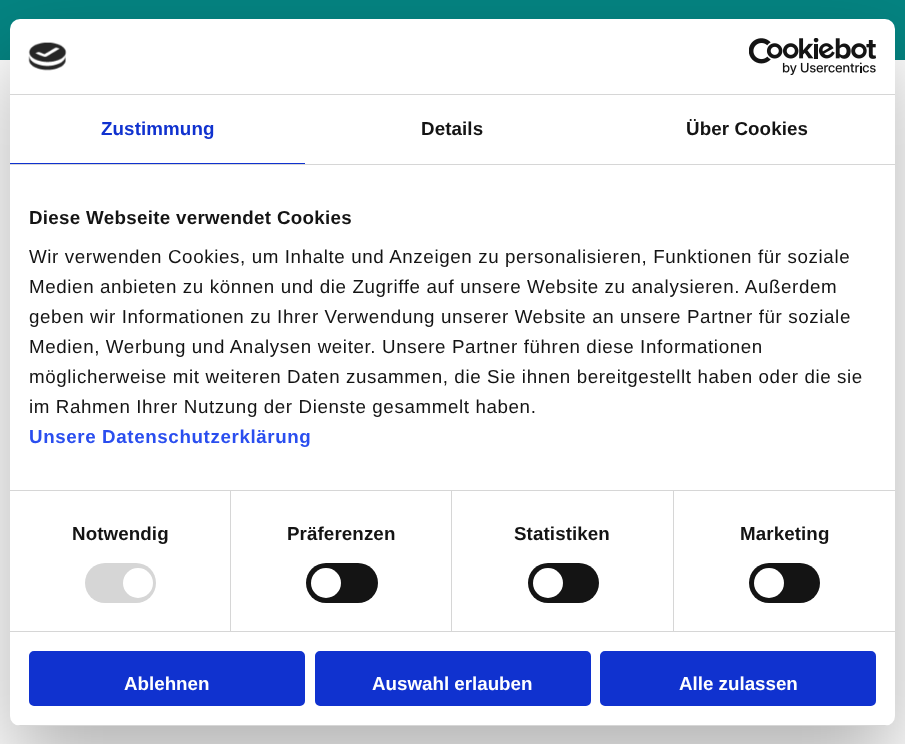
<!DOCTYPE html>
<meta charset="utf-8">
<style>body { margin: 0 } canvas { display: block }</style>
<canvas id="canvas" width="905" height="744"></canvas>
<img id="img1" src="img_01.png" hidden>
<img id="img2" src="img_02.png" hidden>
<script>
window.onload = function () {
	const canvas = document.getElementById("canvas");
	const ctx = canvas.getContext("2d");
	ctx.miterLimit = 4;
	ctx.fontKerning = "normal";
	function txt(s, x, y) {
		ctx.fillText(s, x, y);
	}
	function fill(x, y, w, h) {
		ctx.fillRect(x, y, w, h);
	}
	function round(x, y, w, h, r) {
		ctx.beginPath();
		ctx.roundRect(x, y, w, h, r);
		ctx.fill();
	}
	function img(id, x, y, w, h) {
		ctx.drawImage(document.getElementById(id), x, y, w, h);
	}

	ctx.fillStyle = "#FFFFFF";
	fill(0, 0, 905, 744);
	ctx.fillStyle = "#058482";
	fill(0, 0, 905, 60);
	ctx.fillStyle = "rgba(0, 0, 0, 0.3)";
	ctx.filter = "blur(42.5px)";
	ctx.beginPath();
	ctx.roundRect(10, 59, 885, 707, 10);
	ctx.fill();
	ctx.filter = "none";
	ctx.fillStyle = "#FFFFFF";
	round(10, 19, 885, 707, 10);
	ctx.fillStyle = "#D6D6D6";
	fill(10, 94, 885, 1);
	img("img1", 28, 42, 39, 29);
	img("img2", 749, 38, 127, 37);
	fill(10, 164, 885, 1);
	ctx.fillStyle = "#1032CF";
	fill(10, 163, 295, 1);
	ctx.fillStyle = "#D6D6D6";
	fill(10, 490, 885, 1);
	fill(10, 631, 885, 1);
	fill(230, 491, 1, 140);
	round(85, 563, 71, 40, 20);
	ctx.fillStyle = "#FFFFFF";
	ctx.beginPath();
	ctx.arc(138, 583, 15, 0, Math.PI * 2);
	ctx.fill();
	ctx.fillStyle = "#D6D6D6";
	fill(451, 491, 1, 140);
	ctx.fillStyle = "#141414";
	round(306, 563, 72, 40, 20);
	ctx.fillStyle = "#FFFFFF";
	ctx.beginPath();
	ctx.arc(326, 583, 15, 0, Math.PI * 2);
	ctx.fill();
	ctx.fillStyle = "#D6D6D6";
	fill(673, 491, 1, 140);
	ctx.fillStyle = "#141414";
	round(528, 563, 71, 40, 20);
	ctx.fillStyle = "#FFFFFF";
	ctx.beginPath();
	ctx.arc(548, 583, 15, 0, Math.PI * 2);
	ctx.fill();
	ctx.fillStyle = "#141414";
	round(749, 563, 71, 40, 20);
	ctx.fillStyle = "#FFFFFF";
	ctx.beginPath();
	ctx.arc(769, 583, 15, 0, Math.PI * 2);
	ctx.fill();
	ctx.save();
	ctx.beginPath();
	ctx.roundRect(10, 19, 885, 707, 10);
	ctx.clip();
	ctx.fillStyle = "#D6D6D6";
	fill(10, 725, 885, 1);
	ctx.restore();
	ctx.fillStyle = "#1032CF";
	ctx.beginPath();
	ctx.roundRect(30.5, 652.5, 273, 52, 3.5);
	ctx.fill();
	ctx.strokeStyle = "#1032CF";
	ctx.lineWidth = 3;
	ctx.stroke();
	ctx.beginPath();
	ctx.roundRect(316.5, 652.5, 273, 52, 3.5);
	ctx.fill();
	ctx.stroke();
	ctx.beginPath();
	ctx.roundRect(601.5, 652.5, 273, 52, 3.5);
	ctx.fill();
	ctx.stroke();
	ctx.letterSpacing = "0.1px";
	ctx.font = "bold 18.75px Liberation Sans";
	txt("Zustimmung", 101, 135);
	ctx.fillStyle = "#141414";
	txt("Details", 421, 135);
	txt("Über Cookies", 686, 135);
	ctx.letterSpacing = "0.3px";
	txt("Diese Webseite verwendet Cookies", 29, 224);
	ctx.letterSpacing = "0.62px";
	ctx.font = "18.75px Liberation Sans";
	txt("Wir verwenden Cookies, um Inhalte und Anzeigen zu personalisieren, Funktionen für soziale", 29, 263);
	txt("Medien anbieten zu können und die Zugriffe auf unsere Website zu analysieren. Außerdem", 29, 293);
	txt("geben wir Informationen zu Ihrer Verwendung unserer Website an unsere Partner für soziale", 29, 323);
	txt("Medien, Werbung und Analysen weiter. Unsere Partner führen diese Informationen", 29, 353);
	txt("möglicherweise mit weiteren Daten zusammen, die Sie ihnen bereitgestellt haben oder die sie", 29, 383);
	txt("im Rahmen Ihrer Nutzung der Dienste gesammelt haben.", 29, 413);
	ctx.font = "bold 18.75px Liberation Sans";
	ctx.fillStyle = "#2A4EEF";
	txt("Unsere Datenschutzerklärung", 29, 443);
	ctx.letterSpacing = "0.1px";
	ctx.fillStyle = "#141414";
	txt("Notwendig", 72, 540);
	txt("Präferenzen", 287, 540);
	txt("Statistiken", 514, 540);
	txt("Marketing", 740, 540);
	ctx.letterSpacing = "0px";
	ctx.fillStyle = "#FFFFFF";
	txt("Ablehnen", 124, 690);
	txt("Auswahl erlauben", 372, 690);
	txt("Alle zulassen", 679, 690);
};
</script>
